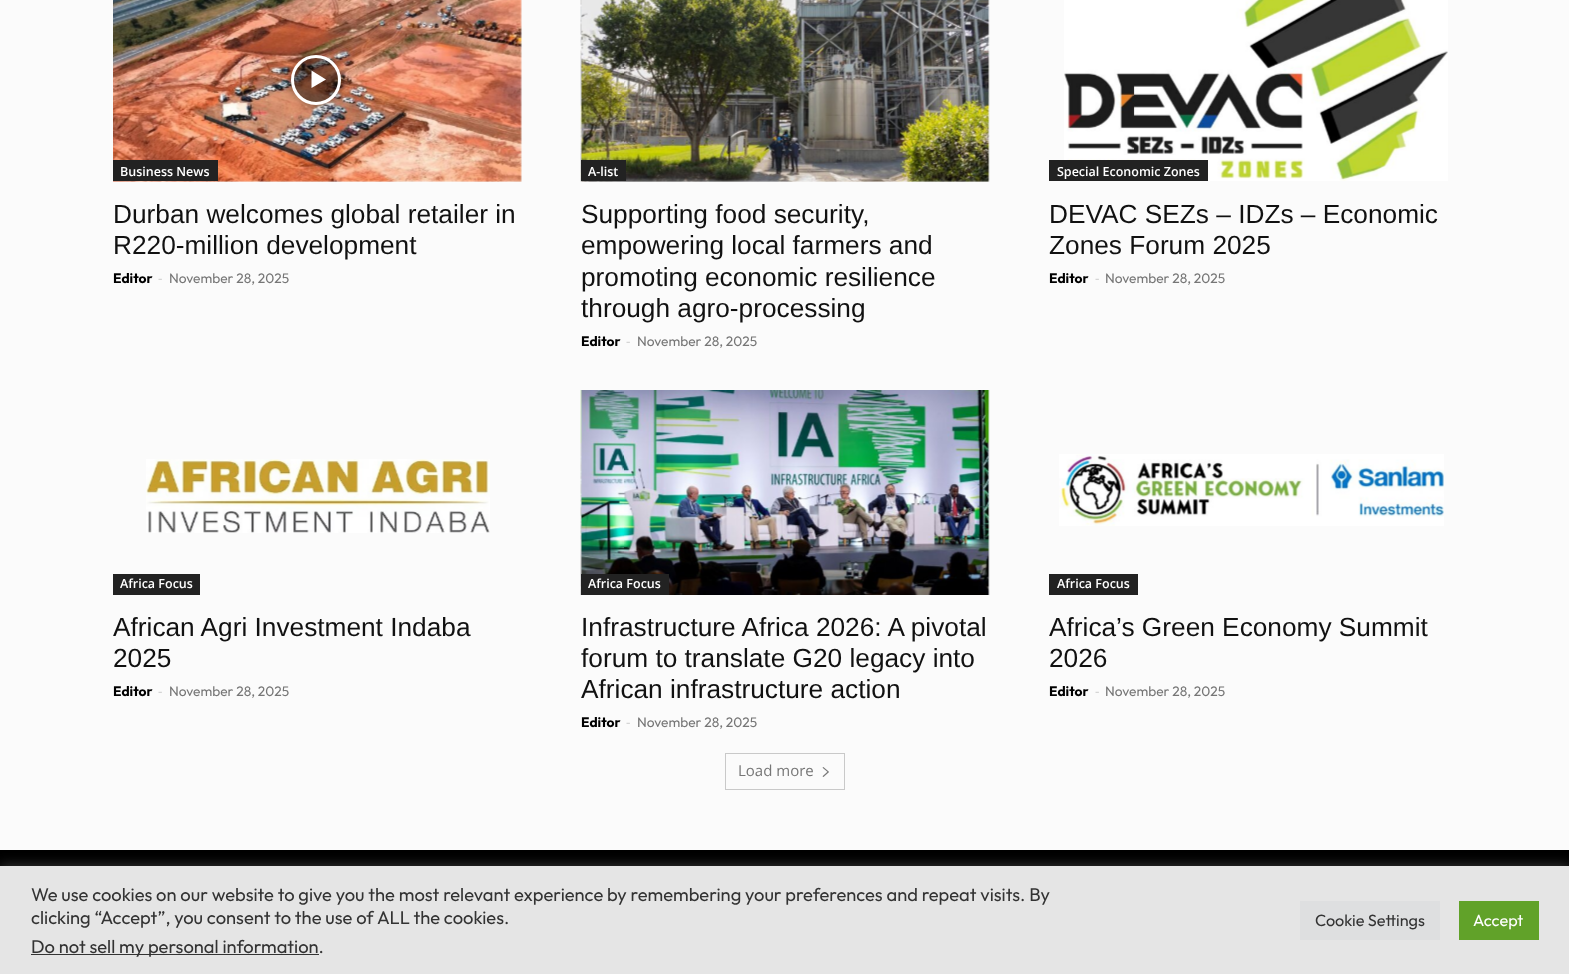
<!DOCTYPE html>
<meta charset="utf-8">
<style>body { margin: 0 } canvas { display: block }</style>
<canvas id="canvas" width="1569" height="974"></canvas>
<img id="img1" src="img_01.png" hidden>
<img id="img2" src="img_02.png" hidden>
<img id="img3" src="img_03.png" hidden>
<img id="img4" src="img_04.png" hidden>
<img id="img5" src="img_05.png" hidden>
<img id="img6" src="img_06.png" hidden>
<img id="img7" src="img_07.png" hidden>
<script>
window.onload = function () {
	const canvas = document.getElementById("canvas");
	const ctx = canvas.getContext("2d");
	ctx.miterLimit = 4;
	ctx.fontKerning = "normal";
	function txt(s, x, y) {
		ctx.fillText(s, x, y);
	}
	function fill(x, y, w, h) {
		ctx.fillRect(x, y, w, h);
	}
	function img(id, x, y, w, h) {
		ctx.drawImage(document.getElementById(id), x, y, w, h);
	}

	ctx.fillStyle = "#FBFBFB";
	fill(0, 0, 1569, 974);
	img("img1", 113, 0, 409, 182);
	ctx.save();
	ctx.beginPath();
	ctx.moveTo(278, 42);
	ctx.lineTo(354, 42);
	ctx.lineTo(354, 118);
	ctx.lineTo(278, 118);
	ctx.closePath();
	ctx.moveTo(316, 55);
	ctx.bezierCurveTo(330, 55, 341, 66, 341, 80);
	ctx.bezierCurveTo(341, 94, 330, 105, 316, 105);
	ctx.bezierCurveTo(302, 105, 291, 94, 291, 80);
	ctx.bezierCurveTo(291, 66, 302, 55, 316, 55);
	ctx.closePath();
	ctx.clip("evenodd");
	ctx.fillStyle = "rgba(0, 0, 0, 0.4)";
	ctx.filter = "blur(4px)";
	ctx.beginPath();
	ctx.roundRect(291, 55, 50, 50, 25);
	ctx.fill();
	ctx.filter = "none";
	ctx.restore();
	ctx.fillStyle = "rgba(0, 0, 0, 0.48)";
	ctx.beginPath();
	ctx.arc(316, 80, 23.5, 0, Math.PI * 2);
	ctx.fill();
	ctx.strokeStyle = "#FFFFFF";
	ctx.lineWidth = 3;
	ctx.stroke();
	ctx.fillStyle = "#FFFFFF";
	ctx.beginPath();
	ctx.moveTo(311.5, 70.5);
	ctx.lineTo(311.5, 88);
	ctx.lineTo(326, 79.5);
	ctx.closePath();
	ctx.fill();
	ctx.fillStyle = "#222222";
	fill(113, 160, 105, 21);
	img("img2", 580, 0, 410, 182);
	fill(581, 160, 45, 21);
	img("img3", 1064, 0, 384, 181);
	fill(1049, 160, 159, 21);
	img("img4", 146, 459, 344, 74);
	fill(113, 574, 87, 21);
	img("img5", 580, 390, 410, 205);
	fill(581, 574, 88, 21);
	img("img6", 1059, 454, 385, 72);
	fill(1049, 574, 89, 21);
	ctx.strokeStyle = "#C9C9C9";
	ctx.lineWidth = 1;
	ctx.strokeRect(725.5, 753.5, 119, 36);
	img("img7", 822, 767, 7, 10);
	ctx.fillStyle = "#000000";
	fill(0, 850, 1569, 16);
	ctx.fillStyle = "rgba(172, 171, 171, 0.3)";
	ctx.filter = "blur(6px)";
	ctx.beginPath();
	ctx.rect(0, 865, 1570, 109);
	ctx.fill();
	ctx.filter = "none";
	ctx.fillStyle = "#E5E5E5";
	fill(0, 866, 1569, 108);
	ctx.fillStyle = "#333333";
	fill(31, 954, 288, 1);
	ctx.fillStyle = "#DEDFE0";
	fill(1300, 901, 140, 39);
	ctx.fillStyle = "#61A229";
	fill(1459, 901, 80, 39);
	ctx.font = "600 12.5px Open Sans";
	ctx.fillStyle = "#FFFFFF";
	txt("Business News", 120, 176);
	ctx.font = "26.25px Arimo";
	ctx.fillStyle = "#111111";
	txt("Durban welcomes global retailer in", 113, 223);
	txt("R220-million development", 113, 254);
	ctx.font = "bold 13.75px Outfit";
	ctx.fillStyle = "#000000";
	txt("Editor", 113, 283);
	ctx.font = "13.75px Open Sans";
	ctx.fillStyle = "#CCCCCC";
	txt("-", 158, 283);
	ctx.font = "13.75px Outfit";
	ctx.fillStyle = "#767676";
	txt("November 28, 2025", 169, 283);
	ctx.font = "600 12.5px Open Sans";
	ctx.fillStyle = "#FFFFFF";
	txt("A-list", 588, 176);
	ctx.font = "26.25px Arimo";
	ctx.fillStyle = "#111111";
	txt("Supporting food security,", 581, 223);
	txt("empowering local farmers and", 581, 254);
	txt("promoting economic resilience", 581, 286);
	txt("through agro-processing", 581, 317);
	ctx.font = "bold 13.75px Outfit";
	ctx.fillStyle = "#000000";
	txt("Editor", 581, 346);
	ctx.font = "13.75px Open Sans";
	ctx.fillStyle = "#CCCCCC";
	txt("-", 626, 346);
	ctx.font = "13.75px Outfit";
	ctx.fillStyle = "#767676";
	txt("November 28, 2025", 637, 346);
	ctx.font = "600 12.5px Open Sans";
	ctx.fillStyle = "#FFFFFF";
	txt("Special Economic Zones", 1057, 176);
	ctx.font = "26.25px Arimo";
	ctx.fillStyle = "#111111";
	txt("DEVAC SEZs – IDZs – Economic", 1049, 223);
	txt("Zones Forum 2025", 1049, 254);
	ctx.font = "bold 13.75px Outfit";
	ctx.fillStyle = "#000000";
	txt("Editor", 1049, 283);
	ctx.font = "13.75px Open Sans";
	ctx.fillStyle = "#CCCCCC";
	txt("-", 1095, 283);
	ctx.font = "13.75px Outfit";
	ctx.fillStyle = "#767676";
	txt("November 28, 2025", 1105, 283);
	ctx.font = "600 12.5px Open Sans";
	ctx.fillStyle = "#FFFFFF";
	txt("Africa Focus", 120, 588);
	ctx.font = "26.25px Arimo";
	ctx.fillStyle = "#111111";
	txt("African Agri Investment Indaba", 113, 636);
	txt("2025", 113, 667);
	ctx.font = "bold 13.75px Outfit";
	ctx.fillStyle = "#000000";
	txt("Editor", 113, 696);
	ctx.font = "13.75px Open Sans";
	ctx.fillStyle = "#CCCCCC";
	txt("-", 158, 696);
	ctx.font = "13.75px Outfit";
	ctx.fillStyle = "#767676";
	txt("November 28, 2025", 169, 696);
	ctx.font = "600 12.5px Open Sans";
	ctx.fillStyle = "#FFFFFF";
	txt("Africa Focus", 588, 588);
	ctx.font = "26.25px Arimo";
	ctx.fillStyle = "#111111";
	txt("Infrastructure Africa 2026: A pivotal", 581, 636);
	txt("forum to translate G20 legacy into", 581, 667);
	txt("African infrastructure action", 581, 698);
	ctx.font = "bold 13.75px Outfit";
	ctx.fillStyle = "#000000";
	txt("Editor", 581, 727);
	ctx.font = "13.75px Open Sans";
	ctx.fillStyle = "#CCCCCC";
	txt("-", 626, 727);
	ctx.font = "13.75px Outfit";
	ctx.fillStyle = "#767676";
	txt("November 28, 2025", 637, 727);
	ctx.font = "600 12.5px Open Sans";
	ctx.fillStyle = "#FFFFFF";
	txt("Africa Focus", 1057, 588);
	ctx.font = "26.25px Arimo";
	ctx.fillStyle = "#111111";
	txt("Africa’s Green Economy Summit", 1049, 636);
	txt("2026", 1049, 667);
	ctx.font = "bold 13.75px Outfit";
	ctx.fillStyle = "#000000";
	txt("Editor", 1049, 696);
	ctx.font = "13.75px Open Sans";
	ctx.fillStyle = "#CCCCCC";
	txt("-", 1095, 696);
	ctx.font = "13.75px Outfit";
	ctx.fillStyle = "#767676";
	txt("November 28, 2025", 1105, 696);
	ctx.font = "15px Open Sans";
	txt("Load more", 738, 776);
	ctx.font = "18.33px Outfit";
	ctx.fillStyle = "#333333";
	txt("We use cookies on our website to give you the most relevant experience by remembering your preferences and repeat visits. By", 31, 901);
	txt("clicking “Accept”, you consent to the use of ALL the cookies.", 31, 924);
	txt("Do not sell my personal information.", 31, 953);
	ctx.font = "16.25px Outfit";
	txt("Cookie Settings", 1315, 926);
	ctx.fillStyle = "#FFFFFF";
	txt("Accept", 1473, 926);
};
</script>
